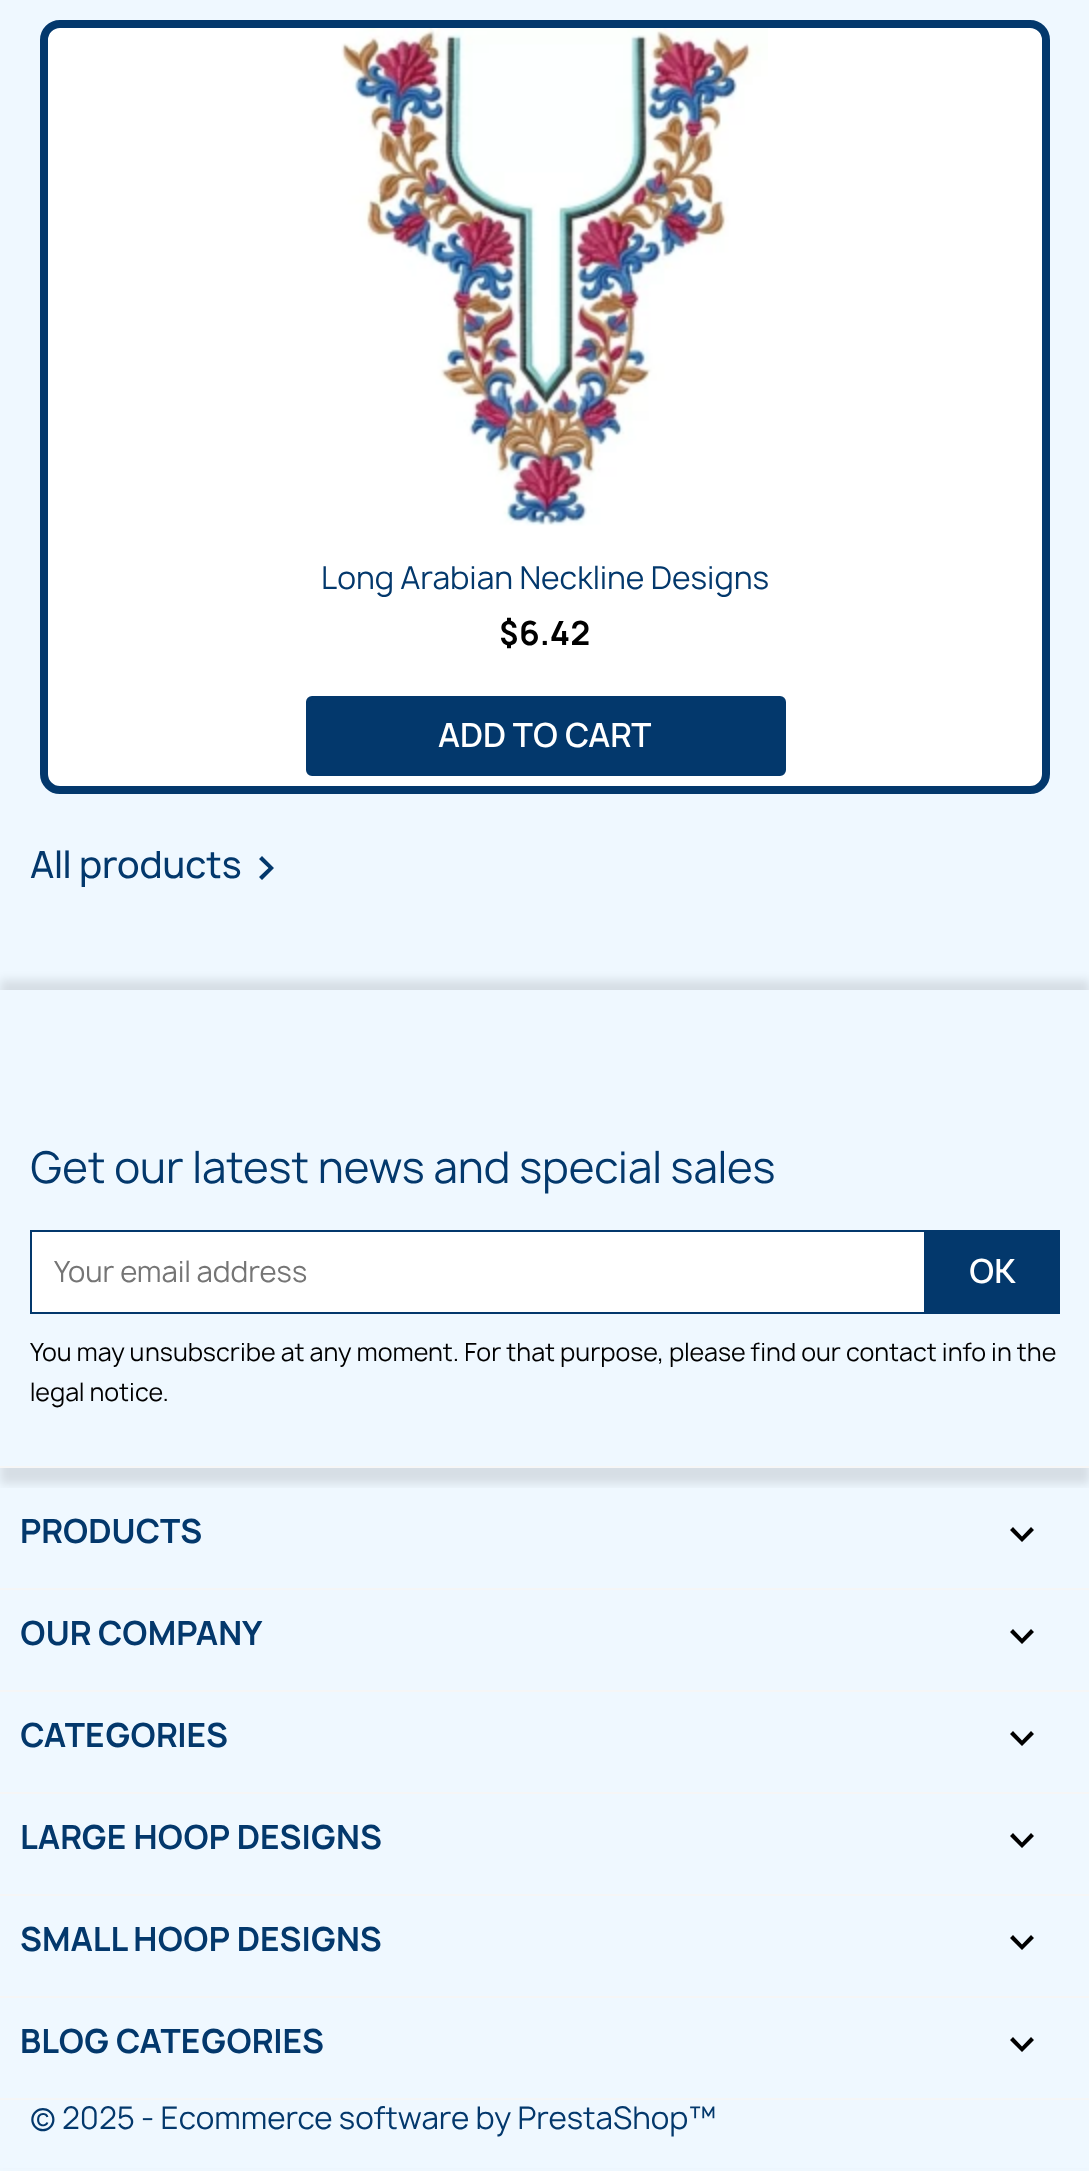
<!DOCTYPE html>
<meta charset="utf-8">
<style>body { margin: 0 } canvas { display: block }</style>
<canvas id="canvas" width="1089" height="2171"></canvas>
<img id="img1" src="img_01.png" hidden>
<script>
window.onload = function () {
	const canvas = document.getElementById("canvas");
	const ctx = canvas.getContext("2d");
	ctx.miterLimit = 4;
	ctx.fontKerning = "normal";
	function txt(s, x, y) {
		ctx.fillText(s, x, y);
	}
	function fill(x, y, w, h) {
		ctx.fillRect(x, y, w, h);
	}
	function img(id, x, y, w, h) {
		ctx.drawImage(document.getElementById(id), x, y, w, h);
	}

	ctx.fillStyle = "#EFF8FF";
	fill(0, 0, 1089, 2171);
	ctx.fillStyle = "#FFFFFF";
	ctx.beginPath();
	ctx.roundRect(44, 24, 1002, 766, 16);
	ctx.fill();
	ctx.strokeStyle = "#03386C";
	ctx.lineWidth = 8;
	ctx.stroke();
	img("img1", 341, 28, 427, 498);
	ctx.fillStyle = "#03386C";
	ctx.beginPath();
	ctx.roundRect(308, 698, 476, 76, 4);
	ctx.fill();
	ctx.lineWidth = 4;
	ctx.stroke();
	ctx.beginPath();
	ctx.moveTo(259, 877);
	ctx.lineTo(268.5, 868);
	ctx.lineTo(259, 859);
	ctx.lineTo(262, 856);
	ctx.lineTo(274, 868);
	ctx.lineTo(262, 880);
	ctx.closePath();
	ctx.fill();
	ctx.fillStyle = "rgba(0, 0, 0, 0.1)";
	ctx.filter = "blur(5px)";
	ctx.beginPath();
	ctx.rect(0, 980, 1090, 1182);
	ctx.fill();
	ctx.filter = "none";
	ctx.fillStyle = "#EFF8FF";
	fill(0, 990, 1089, 1178);
	ctx.save();
	ctx.beginPath();
	ctx.rect(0, 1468, 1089, 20);
	ctx.clip();
	ctx.fillStyle = "rgba(0, 0, 0, 0.1)";
	ctx.filter = "blur(5px)";
	ctx.beginPath();
	ctx.rect(0, 1066, 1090, 418);
	ctx.fill();
	ctx.filter = "none";
	ctx.restore();
	ctx.fillStyle = "#F6F6F6";
	fill(0, 1466, 1089, 2);
	ctx.fillStyle = "#FFFFFF";
	ctx.beginPath();
	ctx.rect(31, 1231, 894, 82);
	ctx.fill();
	ctx.lineWidth = 2;
	ctx.stroke();
	ctx.fillStyle = "#03386C";
	fill(926, 1230, 134, 84);
	ctx.fillStyle = "#F6F6F6";
	fill(0, 1588, 1089, 2);
	ctx.fillStyle = "#000000";
	ctx.beginPath();
	ctx.moveTo(1013, 1527);
	ctx.lineTo(1022, 1536.5);
	ctx.lineTo(1031, 1527);
	ctx.lineTo(1034, 1530);
	ctx.lineTo(1022, 1542);
	ctx.lineTo(1010, 1530);
	ctx.closePath();
	ctx.fill();
	ctx.fillStyle = "#F6F6F6";
	fill(0, 1690, 1089, 2);
	ctx.fillStyle = "#000000";
	ctx.beginPath();
	ctx.moveTo(1013, 1629);
	ctx.lineTo(1022, 1638.5);
	ctx.lineTo(1031, 1629);
	ctx.lineTo(1034, 1632);
	ctx.lineTo(1022, 1644);
	ctx.lineTo(1010, 1632);
	ctx.closePath();
	ctx.fill();
	ctx.fillStyle = "#F6F6F6";
	fill(0, 1792, 1089, 2);
	ctx.fillStyle = "#000000";
	ctx.beginPath();
	ctx.moveTo(1013, 1731);
	ctx.lineTo(1022, 1740.5);
	ctx.lineTo(1031, 1731);
	ctx.lineTo(1034, 1734);
	ctx.lineTo(1022, 1746);
	ctx.lineTo(1010, 1734);
	ctx.closePath();
	ctx.fill();
	ctx.fillStyle = "#F6F6F6";
	fill(0, 1894, 1089, 2);
	ctx.fillStyle = "#000000";
	ctx.beginPath();
	ctx.moveTo(1013, 1833);
	ctx.lineTo(1022, 1842.5);
	ctx.lineTo(1031, 1833);
	ctx.lineTo(1034, 1836);
	ctx.lineTo(1022, 1848);
	ctx.lineTo(1010, 1836);
	ctx.closePath();
	ctx.fill();
	ctx.fillStyle = "#F6F6F6";
	fill(0, 1996, 1089, 2);
	ctx.fillStyle = "#000000";
	ctx.beginPath();
	ctx.moveTo(1013, 1935);
	ctx.lineTo(1022, 1944.5);
	ctx.lineTo(1031, 1935);
	ctx.lineTo(1034, 1938);
	ctx.lineTo(1022, 1950);
	ctx.lineTo(1010, 1938);
	ctx.closePath();
	ctx.fill();
	ctx.fillStyle = "#F6F6F6";
	fill(0, 2098, 1089, 2);
	ctx.fillStyle = "#000000";
	ctx.beginPath();
	ctx.moveTo(1013, 2037);
	ctx.lineTo(1022, 2046.5);
	ctx.lineTo(1031, 2037);
	ctx.lineTo(1034, 2040);
	ctx.lineTo(1022, 2052);
	ctx.lineTo(1010, 2040);
	ctx.closePath();
	ctx.fill();
	ctx.font = "30.4px Manrope";
	ctx.fillStyle = "#03386C";
	txt("Long Arabian Neckline Designs", 321, 589);
	ctx.font = "bold 32px Manrope";
	ctx.fillStyle = "#000000";
	txt("$6.42", 499, 645);
	ctx.font = "600 32px Manrope";
	ctx.fillStyle = "#FFFFFF";
	txt("ADD TO CART", 438, 747);
	ctx.font = "500 36px Manrope";
	ctx.fillStyle = "#03386C";
	txt("All products", 30, 878);
	ctx.font = "42px Manrope";
	txt("Get our latest news and special sales", 30, 1183);
	ctx.font = "28px Manrope";
	ctx.fillStyle = "#757575";
	txt("Your email address", 54, 1282);
	ctx.font = "600 32px Manrope";
	ctx.fillStyle = "#FFFFFF";
	txt("OK", 969, 1283);
	ctx.font = "24px Manrope";
	ctx.fillStyle = "#000000";
	txt("You may unsubscribe at any moment. For that purpose, please find our contact info in the", 30, 1361);
	txt("legal notice.", 30, 1401);
	ctx.font = "bold 32px Manrope";
	ctx.fillStyle = "#03386C";
	txt("PRODUCTS", 20, 1543);
	txt("OUR COMPANY", 20, 1645);
	txt("CATEGORIES", 20, 1747);
	txt("LARGE HOOP DESIGNS", 20, 1849);
	txt("SMALL HOOP DESIGNS", 20, 1951);
	txt("BLOG CATEGORIES", 20, 2053);
	ctx.font = "30px Manrope";
	txt("© 2025 - Ecommerce software by PrestaShop™", 30, 2129);
};
</script>
